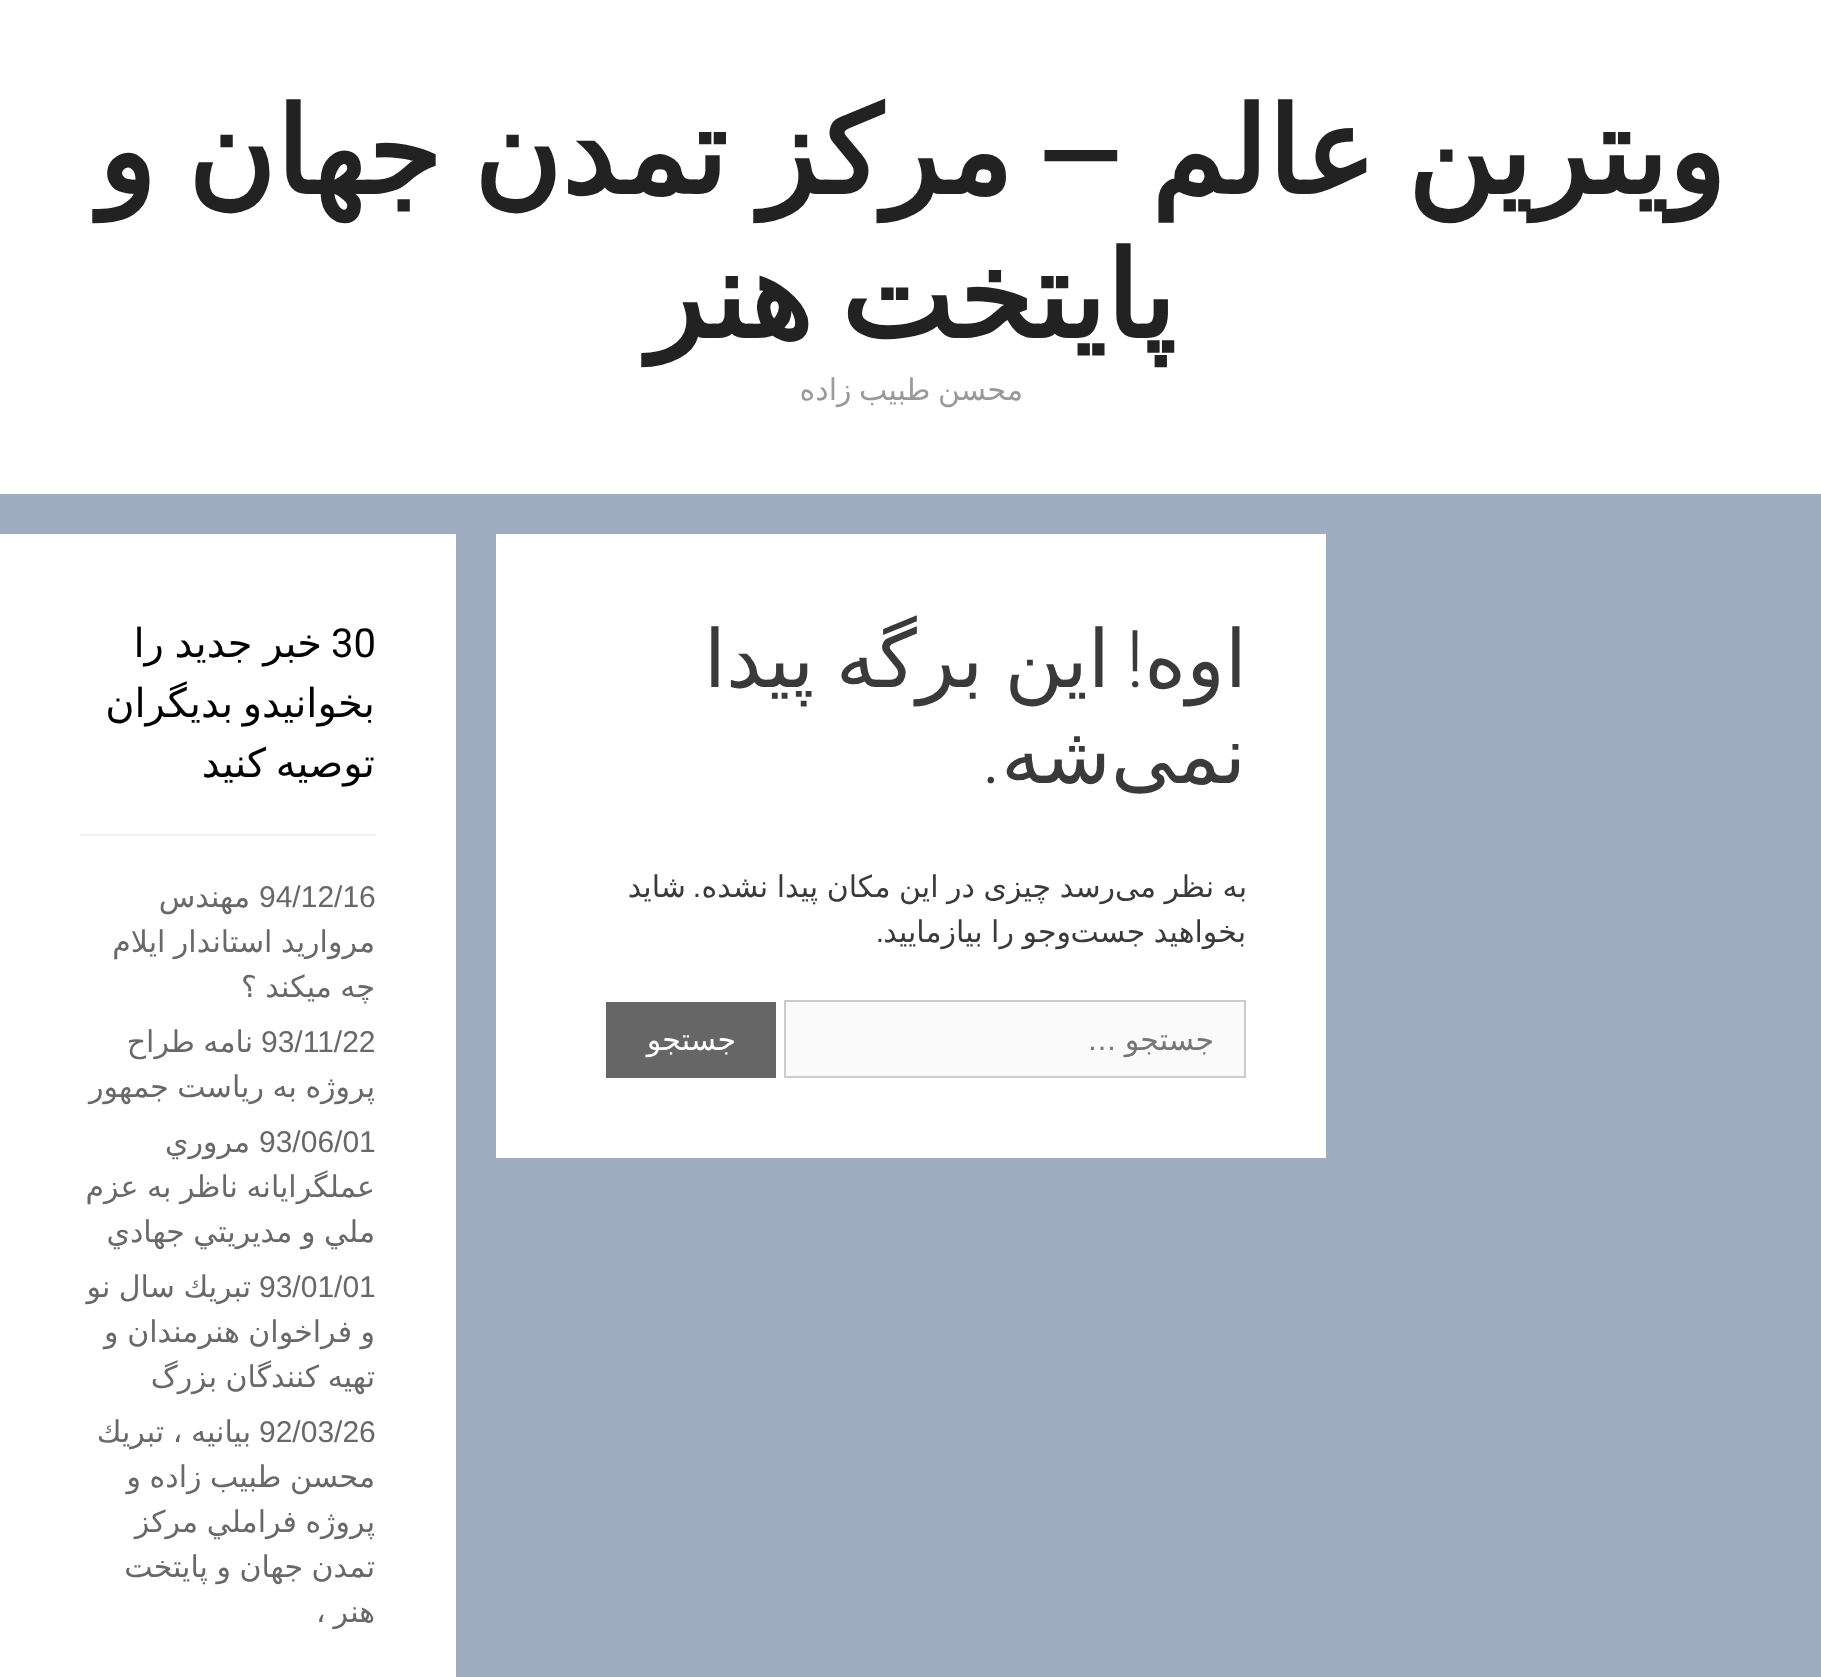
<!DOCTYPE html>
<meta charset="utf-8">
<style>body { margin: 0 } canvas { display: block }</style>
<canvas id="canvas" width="1821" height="1677"></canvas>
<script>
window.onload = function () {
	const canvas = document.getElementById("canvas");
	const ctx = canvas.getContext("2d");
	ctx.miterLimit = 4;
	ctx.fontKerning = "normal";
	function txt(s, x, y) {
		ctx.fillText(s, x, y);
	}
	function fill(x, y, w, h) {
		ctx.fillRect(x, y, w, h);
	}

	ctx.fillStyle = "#9EADBF";
	fill(0, 0, 1821, 1677);
	ctx.fillStyle = "#FFFFFF";
	fill(0, 0, 1821, 494);
	fill(496, 534, 830, 624);
	ctx.fillStyle = "#FAFAFA";
	ctx.beginPath();
	ctx.rect(785, 1001, 460, 76);
	ctx.fill();
	ctx.strokeStyle = "#CCCCCC";
	ctx.lineWidth = 2;
	ctx.stroke();
	ctx.fillStyle = "#666666";
	fill(606, 1002, 170, 76);
	ctx.fillStyle = "#FFFFFF";
	fill(0, 534, 456, 1143);
	ctx.fillStyle = "#EFEFEF";
	fill(80, 834, 296, 2);
	ctx.wordSpacing = "-6.5px";
	ctx.direction = "rtl";
	ctx.font = "bold 120px DejaVu Sans";
	ctx.fillStyle = "#222222";
	txt("ویترین عالم", 1725, 194);
	ctx.wordSpacing = "0px";
	ctx.font = "bold 120px Merriweather";
	txt("–", 1128, 194);
	ctx.wordSpacing = "-6.5px";
	ctx.font = "bold 120px DejaVu Sans";
	txt("مرکز تمدن جهان و", 1012, 194);
	ctx.wordSpacing = "-10px";
	txt("پایتخت هنر", 1175, 338);
	ctx.wordSpacing = "-2px";
	ctx.font = "30px DejaVu Sans";
	ctx.fillStyle = "#999999";
	txt("محسن طبیب زاده", 1023, 400);
	ctx.wordSpacing = "0px";
	ctx.font = "80px DejaVu Sans";
	ctx.fillStyle = "#3A3A3A";
	txt("اوه", 1247, 687);
	ctx.font = "300 80px Roboto";
	txt("!", 1144, 687);
	ctx.wordSpacing = "-4px";
	ctx.font = "80px DejaVu Sans";
	txt("این برگه پیدا", 1110, 687);
	ctx.wordSpacing = "0px";
	txt("نمی‌شه", 1246, 783);
	ctx.font = "300 80px Roboto";
	txt(".", 1001, 783);
	ctx.wordSpacing = "-1px";
	ctx.font = "30px DejaVu Sans";
	txt("به نظر می", 1247, 897);
	txt("رسد چیزی در این مکان پیدا نشده", 1115, 897);
	ctx.wordSpacing = "0px";
	ctx.font = "30px Liberation Sans";
	txt(".", 701, 897);
	ctx.font = "30px DejaVu Sans";
	txt("شاید", 686, 897);
	ctx.wordSpacing = "-1px";
	txt("بخواهید جست", 1246, 942);
	txt("وجو را بیازمایید", 1071, 942);
	ctx.wordSpacing = "0px";
	ctx.font = "30px Liberation Sans";
	txt(".", 884, 942);
	ctx.font = "30px DejaVu Sans";
	ctx.fillStyle = "#757575";
	txt("جستجو", 1214, 1050);
	ctx.font = "30px Liberation Sans";
	txt("…", 1117, 1050);
	ctx.font = "30px DejaVu Sans";
	ctx.fillStyle = "#FFFFFF";
	txt("جستجو", 736, 1050);
	ctx.direction = "ltr";
	ctx.font = "40px Roboto";
	ctx.fillStyle = "#000000";
	txt("30", 331, 657);
	ctx.wordSpacing = "-2px";
	ctx.direction = "rtl";
	ctx.font = "40px DejaVu Sans";
	txt("خبر جديد را", 322, 657);
	ctx.wordSpacing = "-3px";
	txt("بخوانيدو بديگران", 375, 717);
	txt("توصيه كنيد", 375, 777);
	ctx.wordSpacing = "0px";
	ctx.direction = "ltr";
	ctx.font = "30px Liberation Sans";
	ctx.fillStyle = "#686868";
	txt("94/12/16", 259, 907);
	ctx.direction = "rtl";
	ctx.font = "30px DejaVu Sans";
	txt("مهندس", 250, 907);
	ctx.wordSpacing = "-1px";
	txt("مرواريد استاندار ايلام", 375, 952);
	txt("چه ميكند ؟", 375, 997);
	ctx.wordSpacing = "0px";
	ctx.direction = "ltr";
	ctx.font = "30px Liberation Sans";
	txt("93/11/22", 261, 1052);
	ctx.wordSpacing = "-1px";
	ctx.direction = "rtl";
	ctx.font = "30px DejaVu Sans";
	txt("نامه طراح", 253, 1052);
	txt("پروژه به رياست جمهور", 375, 1097);
	ctx.wordSpacing = "0px";
	ctx.direction = "ltr";
	ctx.font = "30px Liberation Sans";
	txt("93/06/01", 259, 1152);
	ctx.direction = "rtl";
	ctx.font = "30px DejaVu Sans";
	txt("مروري", 250, 1152);
	ctx.wordSpacing = "-1px";
	txt("عملگرايانه ناظر به عزم", 375, 1197);
	txt("ملي و مديريتي جهادي", 375, 1242);
	ctx.wordSpacing = "0px";
	ctx.direction = "ltr";
	ctx.font = "30px Liberation Sans";
	txt("93/01/01", 259, 1297);
	ctx.wordSpacing = "-1px";
	ctx.direction = "rtl";
	ctx.font = "30px DejaVu Sans";
	txt("تبريك سال نو", 251, 1297);
	txt("و فراخوان هنرمندان و", 375, 1342);
	txt("تهيه كنندگان بزرگ", 375, 1387);
	ctx.wordSpacing = "0px";
	ctx.direction = "ltr";
	ctx.font = "30px Liberation Sans";
	txt("92/03/26", 259, 1442);
	ctx.wordSpacing = "-1px";
	ctx.direction = "rtl";
	ctx.font = "30px DejaVu Sans";
	txt("بيانيه ، تبريك", 251, 1442);
	txt("محسن طبيب زاده و", 375, 1487);
	txt("پروژه فراملي مركز", 375, 1532);
	txt("تمدن جهان و پايتخت", 375, 1577);
	ctx.wordSpacing = "0px";
	txt("هنر", 375, 1622);
	ctx.direction = "ltr";
	txt("،", 316, 1622);
};
</script>
